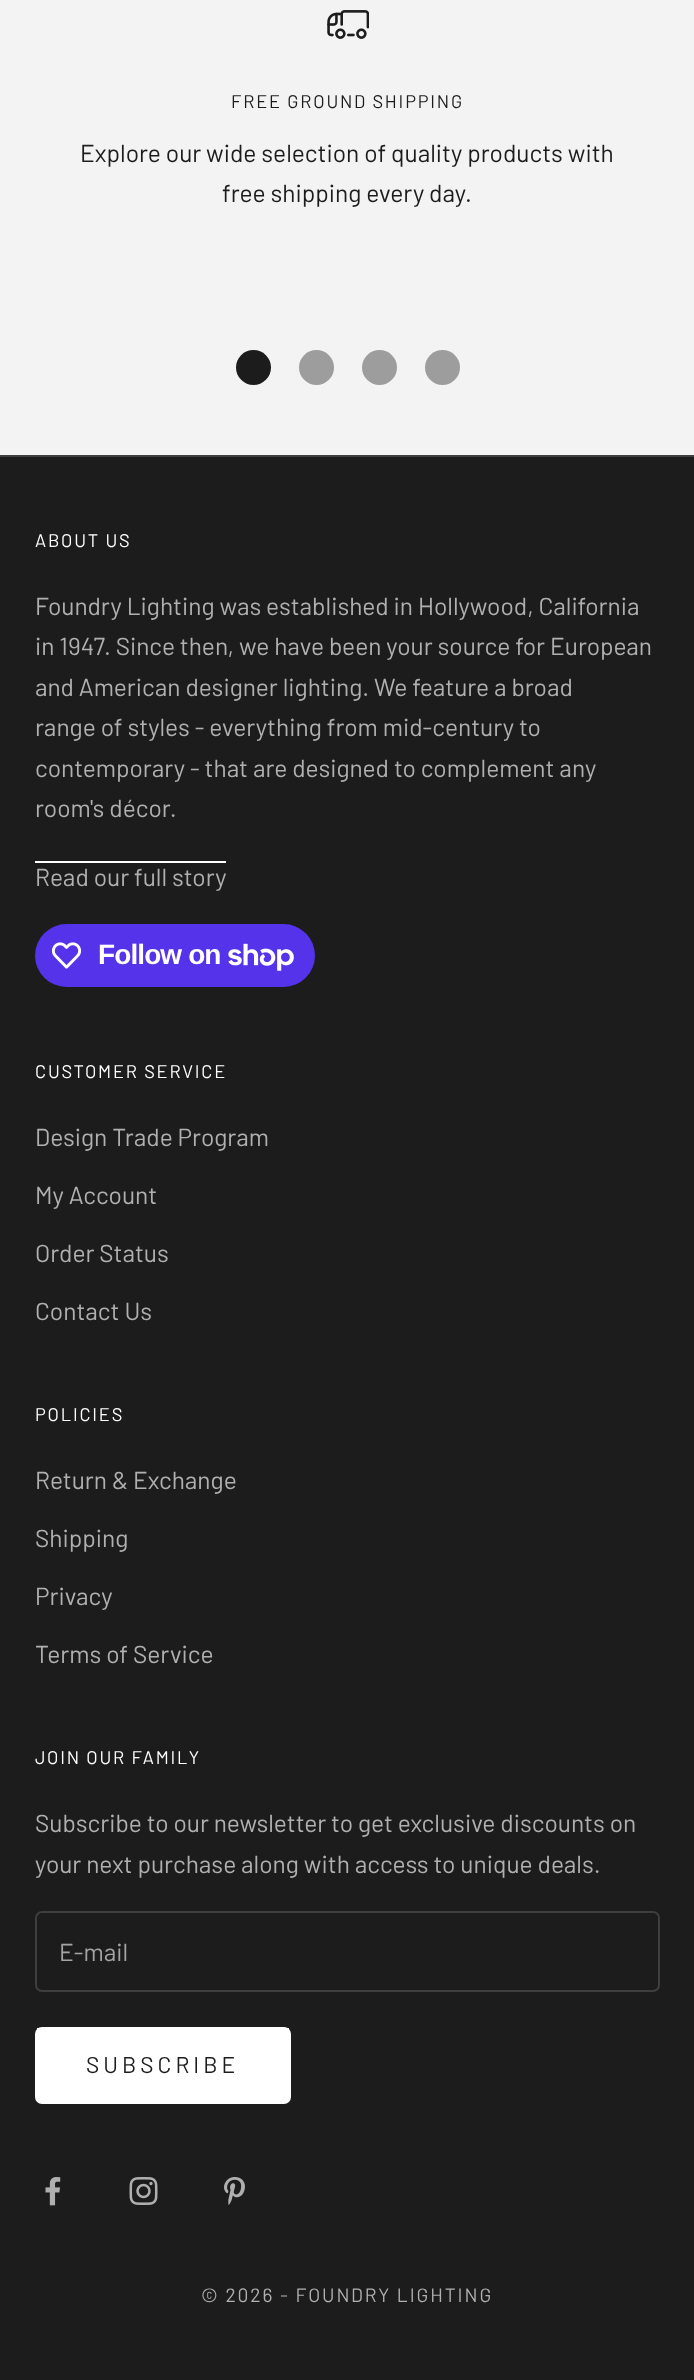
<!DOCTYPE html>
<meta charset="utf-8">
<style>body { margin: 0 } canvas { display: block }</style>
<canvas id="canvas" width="694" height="2380"></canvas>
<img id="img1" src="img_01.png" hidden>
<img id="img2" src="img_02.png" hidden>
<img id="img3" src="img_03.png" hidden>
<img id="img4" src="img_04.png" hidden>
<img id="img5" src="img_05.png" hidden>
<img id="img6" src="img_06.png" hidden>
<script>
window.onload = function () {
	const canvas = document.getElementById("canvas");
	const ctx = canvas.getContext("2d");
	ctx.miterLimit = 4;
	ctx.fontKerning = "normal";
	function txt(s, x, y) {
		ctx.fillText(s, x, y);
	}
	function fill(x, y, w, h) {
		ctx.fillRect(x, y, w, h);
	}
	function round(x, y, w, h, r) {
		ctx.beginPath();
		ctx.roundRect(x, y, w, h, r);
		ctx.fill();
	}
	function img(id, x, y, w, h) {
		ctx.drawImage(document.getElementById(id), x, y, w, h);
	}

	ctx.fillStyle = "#F4F3F3";
	fill(0, 0, 694, 2380);
	img("img1", 327, 10, 42, 29);
	ctx.fillStyle = "#1C1C1C";
	ctx.beginPath();
	ctx.arc(253.5, 367.5, 17.5, 0, Math.PI * 2);
	ctx.fill();
	ctx.fillStyle = "#9E9D9D";
	ctx.beginPath();
	ctx.arc(316.5, 367.5, 17.5, 0, Math.PI * 2);
	ctx.fill();
	ctx.beginPath();
	ctx.arc(379.5, 367.5, 17.5, 0, Math.PI * 2);
	ctx.fill();
	ctx.beginPath();
	ctx.arc(442.5, 367.5, 17.5, 0, Math.PI * 2);
	ctx.fill();
	ctx.fillStyle = "#1C1C1C";
	fill(0, 457, 694, 1923);
	ctx.fillStyle = "#3E3E3E";
	fill(0, 455, 694, 2);
	ctx.fillStyle = "#FFFFFF";
	fill(35, 861, 191, 2);
	ctx.fillStyle = "#5433EB";
	round(35, 924, 280, 63, 31.5);
	img("img2", 51, 942, 31, 27);
	img("img3", 228, 943, 66, 28);
	ctx.beginPath();
	ctx.roundRect(36, 1912, 623, 79, 6);
	ctx.strokeStyle = "#3E3E3E";
	ctx.lineWidth = 2;
	ctx.stroke();
	ctx.fillStyle = "#FFFFFF";
	fill(37, 2028, 252, 74);
	ctx.beginPath();
	ctx.roundRect(36, 2028, 254, 75, 6);
	ctx.strokeStyle = "#FFFFFF";
	ctx.stroke();
	img("img4", 45, 2177, 16, 29);
	img("img5", 129, 2177, 29, 28);
	img("img6", 224, 2177, 21, 28);
	ctx.letterSpacing = "1.8px";
	ctx.font = "18.25px Barlow";
	ctx.fillStyle = "#1C1C1C";
	txt("FREE GROUND SHIPPING", 231, 108);
	ctx.letterSpacing = "0px";
	ctx.font = "24.5px Barlow";
	txt("Explore our wide selection of quality products with", 80, 162);
	txt("free shipping every day.", 222, 202);
	ctx.letterSpacing = "1.8px";
	ctx.font = "18.25px Barlow";
	ctx.fillStyle = "#FFFFFF";
	txt("ABOUT US", 35, 547);
	ctx.letterSpacing = "0px";
	ctx.font = "24.5px Barlow";
	ctx.fillStyle = "#B0B0B0";
	txt("Foundry Lighting was established in Hollywood, California", 35, 615);
	txt("in 1947. Since then, we have been your source for European", 35, 655);
	txt("and American designer lighting. We feature a broad", 35, 696);
	txt("range of styles - everything from mid-century to", 35, 736);
	txt("contemporary - that are designed to complement any", 35, 777);
	txt("room's décor.", 35, 817);
	txt("Read our full story", 35, 886);
	ctx.letterSpacing = "-0.9px";
	ctx.font = "bold 28px Liberation Sans";
	ctx.fillStyle = "#FFFFFF";
	txt("Follow on", 98, 964);
	ctx.letterSpacing = "1.8px";
	ctx.font = "18.25px Barlow";
	txt("CUSTOMER SERVICE", 35, 1078);
	ctx.letterSpacing = "0px";
	ctx.font = "24.5px Barlow";
	ctx.fillStyle = "#B0B0B0";
	txt("Design Trade Program", 35, 1146);
	txt("My Account", 35, 1204);
	txt("Order Status", 35, 1262);
	txt("Contact Us", 35, 1320);
	ctx.letterSpacing = "1.8px";
	ctx.font = "18.25px Barlow";
	ctx.fillStyle = "#FFFFFF";
	txt("POLICIES", 35, 1421);
	ctx.letterSpacing = "0px";
	ctx.font = "24.5px Barlow";
	ctx.fillStyle = "#B0B0B0";
	txt("Return & Exchange", 35, 1489);
	txt("Shipping", 35, 1547);
	txt("Privacy", 35, 1605);
	txt("Terms of Service", 35, 1663);
	ctx.letterSpacing = "1.8px";
	ctx.font = "18.25px Barlow";
	ctx.fillStyle = "#FFFFFF";
	txt("JOIN OUR FAMILY", 35, 1764);
	ctx.letterSpacing = "0px";
	ctx.font = "24.5px Barlow";
	ctx.fillStyle = "#B0B0B0";
	txt("Subscribe to our newsletter to get exclusive discounts on", 35, 1832);
	txt("your next purchase along with access to unique deals.", 35, 1873);
	ctx.fillStyle = "#A4A4A4";
	txt("E-mail", 59, 1961);
	ctx.letterSpacing = "4px";
	ctx.font = "22.75px Barlow";
	ctx.fillStyle = "#1C1C1C";
	txt("SUBSCRIBE", 86, 2073);
	ctx.letterSpacing = "1.9px";
	ctx.font = "19.25px Barlow";
	ctx.fillStyle = "#B0B0B0";
	txt("© 2026 - FOUNDRY LIGHTING", 201, 2302);
};
</script>
